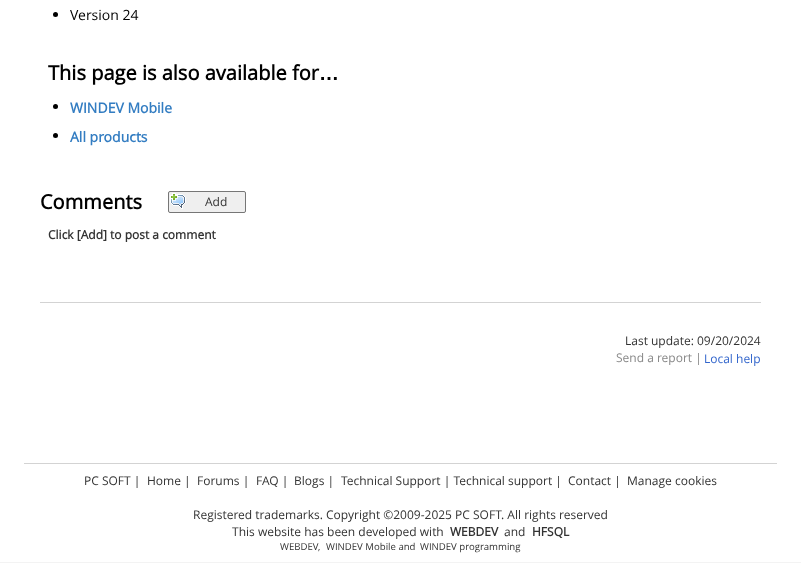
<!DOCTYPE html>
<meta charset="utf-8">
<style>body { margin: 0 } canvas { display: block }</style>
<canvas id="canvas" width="801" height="563"></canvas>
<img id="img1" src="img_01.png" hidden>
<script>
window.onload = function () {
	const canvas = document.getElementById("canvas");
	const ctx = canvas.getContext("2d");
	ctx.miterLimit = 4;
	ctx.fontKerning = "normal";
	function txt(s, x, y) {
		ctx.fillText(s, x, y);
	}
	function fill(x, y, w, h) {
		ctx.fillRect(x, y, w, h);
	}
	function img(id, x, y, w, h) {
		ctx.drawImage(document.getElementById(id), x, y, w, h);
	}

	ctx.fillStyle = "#F3F3F3";
	fill(0, 0, 801, 563);
	ctx.fillStyle = "#FFFFFF";
	fill(0, 0, 801, 562);
	ctx.fillStyle = "#000000";
	ctx.beginPath();
	ctx.arc(55.5, 14.5, 2.5, 0, Math.PI * 2);
	ctx.fill();
	ctx.beginPath();
	ctx.arc(55.5, 106.5, 2.5, 0, Math.PI * 2);
	ctx.fill();
	ctx.beginPath();
	ctx.arc(55.5, 135.5, 2.5, 0, Math.PI * 2);
	ctx.fill();
	ctx.fillStyle = "#EFEFEF";
	ctx.beginPath();
	ctx.roundRect(168.5, 191.5, 77, 21, 1.5);
	ctx.fill();
	ctx.strokeStyle = "#767676";
	ctx.stroke();
	img("img1", 170, 193, 16, 16);
	ctx.fillStyle = "#D3D3D3";
	fill(40, 302, 721, 1);
	fill(24, 463, 753, 1);
	ctx.font = "14px Open Sans";
	ctx.fillStyle = "#000000";
	txt("Version 24", 70, 20);
	ctx.font = "bold 20px Open Sans";
	txt("This page is also available for", 48, 80);
	ctx.font = "bold 20px Liberation Sans";
	txt("…", 319, 80);
	ctx.font = "bold 14px Open Sans";
	ctx.fillStyle = "#337DC2";
	txt("WINDEV Mobile", 70, 113);
	txt("All products", 70, 142);
	ctx.font = "bold 20px Open Sans";
	ctx.fillStyle = "#000000";
	txt("Comments", 40, 209);
	ctx.font = "12px Open Sans";
	ctx.fillStyle = "#333333";
	txt("Add", 205, 206);
	ctx.font = "bold 12px Open Sans";
	txt("Click [Add] to post a comment", 48, 239);
	ctx.font = "12px Open Sans";
	txt("Last update: 09/20/2024", 625, 345);
	ctx.fillStyle = "#888888";
	txt("Send a report |", 616, 362);
	ctx.fillStyle = "#3366CC";
	txt("Local help", 704, 363);
	ctx.fillStyle = "#333333";
	txt("PC SOFT |", 84, 485);
	txt("Home |", 147, 485);
	txt("Forums |", 197, 485);
	txt("FAQ |", 256, 485);
	txt("Blogs |", 294, 485);
	txt("Technical Support | Technical support |", 341, 485);
	txt("Contact |", 568, 485);
	txt("Manage cookies", 627, 485);
	txt("Registered trademarks. Copyright ©2009-2025 PC SOFT. All rights reserved", 193, 519);
	txt("This website has been developed with", 232, 536);
	ctx.font = "bold 12px Open Sans";
	txt("WEBDEV", 450, 536);
	ctx.font = "12px Open Sans";
	txt("and", 504, 536);
	ctx.font = "bold 12px Open Sans";
	txt("HFSQL", 532, 536);
	ctx.font = "9.6px Open Sans";
	txt("WEBDEV", 280, 550);
	txt(",", 318, 550);
	txt("WINDEV Mobile and", 326, 550);
	txt("WINDEV programming", 420, 550);
};
</script>
